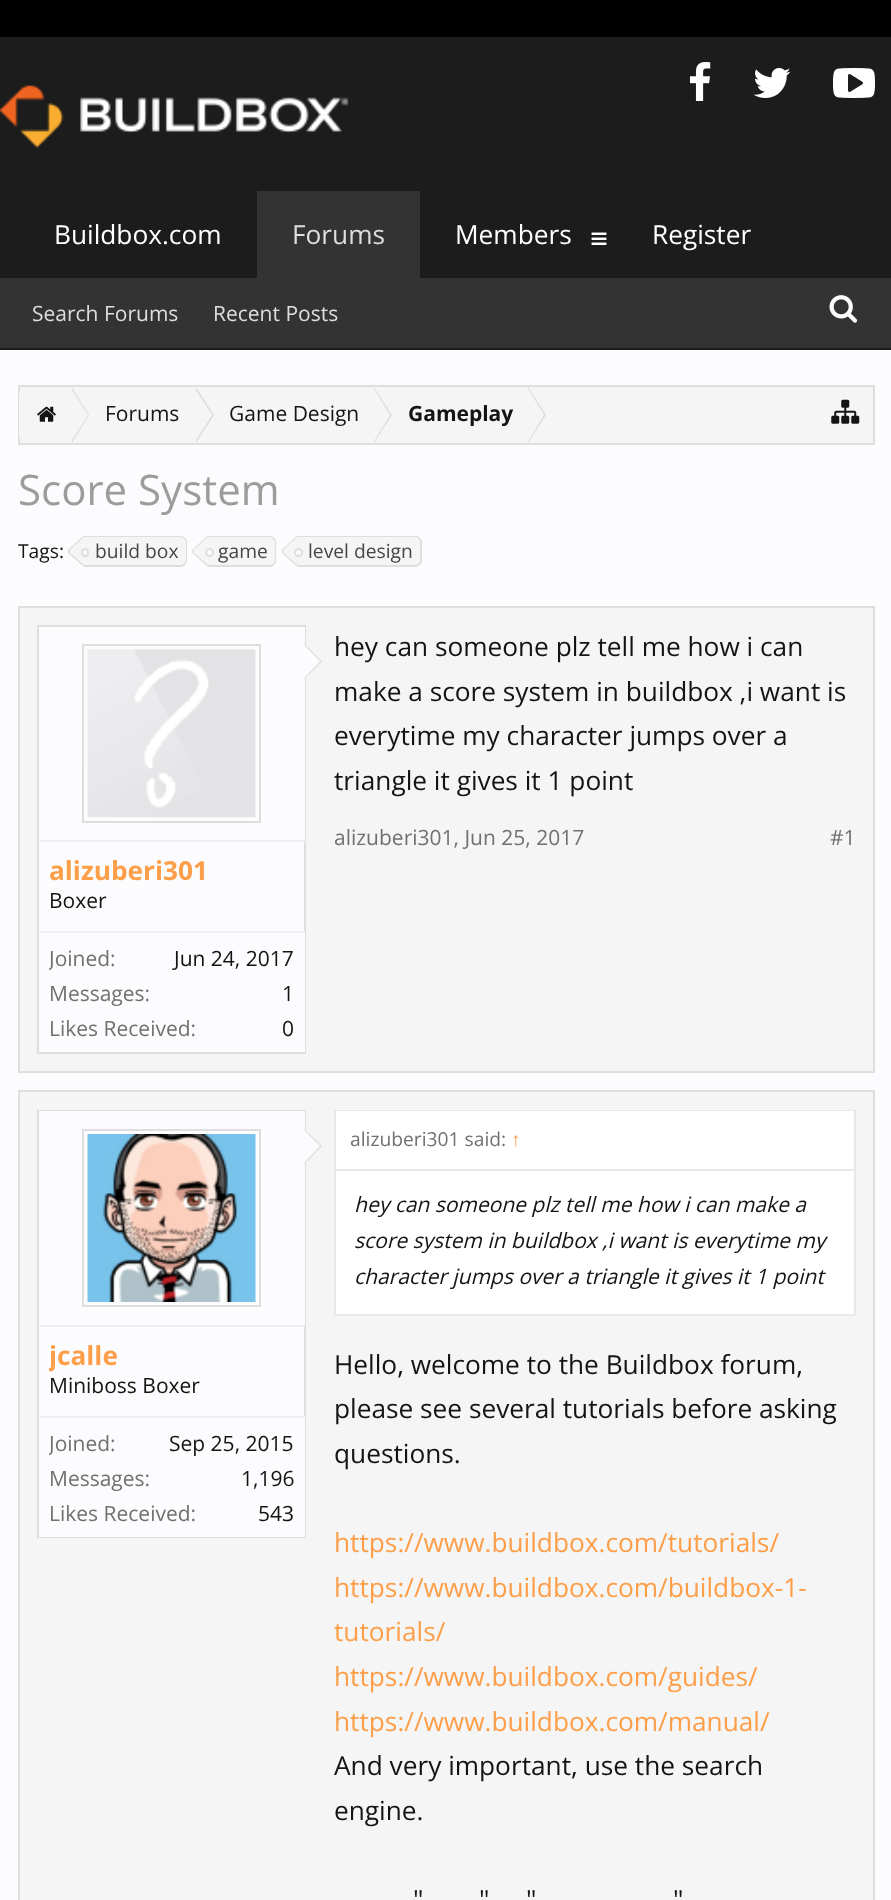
<!DOCTYPE html>
<meta charset="utf-8">
<style>body { margin: 0 } canvas { display: block }</style>
<canvas id="canvas" width="891" height="1900"></canvas>
<img id="img1" src="img_01.png" hidden>
<img id="img2" src="img_02.png" hidden>
<img id="img3" src="img_03.png" hidden>
<img id="img4" src="img_04.png" hidden>
<img id="img5" src="img_05.png" hidden>
<img id="img6" src="img_06.png" hidden>
<img id="img7" src="img_07.png" hidden>
<img id="img8" src="img_08.png" hidden>
<img id="img9" src="img_09.png" hidden>
<img id="img10" src="img_10.png" hidden>
<script>
window.onload = function () {
	const canvas = document.getElementById("canvas");
	const ctx = canvas.getContext("2d");
	ctx.miterLimit = 4;
	ctx.fontKerning = "normal";
	function txt(s, x, y) {
		ctx.fillText(s, x, y);
	}
	function fill(x, y, w, h) {
		ctx.fillRect(x, y, w, h);
	}
	function img(id, x, y, w, h) {
		ctx.drawImage(document.getElementById(id), x, y, w, h);
	}

	ctx.fillStyle = "#000000";
	fill(0, 0, 891, 1900);
	ctx.fillStyle = "#1C1C1C";
	fill(0, 37, 891, 313);
	img("img1", 0, 85, 349, 63);
	img("img2", 689, 62, 22, 39);
	img("img3", 753, 68, 38, 30);
	img("img4", 833, 68, 42, 30);
	img("img5", 591, 232, 16, 13);
	ctx.fillStyle = "#333333";
	fill(257, 191, 163, 87);
	fill(0, 278, 891, 70);
	img("img6", 829, 295, 29, 28);
	ctx.fillStyle = "#FCFCFF";
	fill(0, 350, 891, 1550);
	ctx.fillStyle = "#F5F5F5";
	ctx.beginPath();
	ctx.rect(19, 386, 855, 58);
	ctx.fill();
	ctx.strokeStyle = "#DEDEDE";
	ctx.lineWidth = 2;
	ctx.stroke();
	ctx.save();
	ctx.beginPath();
	ctx.rect(19, 387, 854, 56);
	ctx.clip();
	ctx.beginPath();
	ctx.roundRect(19, 387, 55, 58, [9, 0, 0, 9]);
	ctx.fill();
	ctx.restore();
	img("img7", 37, 406, 19, 16);
	ctx.fillStyle = "#DEDEDE";
	ctx.beginPath();
	ctx.moveTo(72, 443);
	ctx.lineTo(72, 387);
	ctx.lineTo(89, 415);
	ctx.closePath();
	ctx.fill();
	ctx.fillStyle = "#F5F5F5";
	ctx.beginPath();
	ctx.moveTo(70, 443);
	ctx.lineTo(70, 387);
	ctx.lineTo(88, 415);
	ctx.closePath();
	ctx.fill();
	ctx.fillStyle = "#DEDEDE";
	ctx.beginPath();
	ctx.moveTo(196, 443);
	ctx.lineTo(196, 387);
	ctx.lineTo(214, 415);
	ctx.closePath();
	ctx.fill();
	ctx.fillStyle = "#F5F5F5";
	ctx.beginPath();
	ctx.moveTo(194, 443);
	ctx.lineTo(194, 387);
	ctx.lineTo(212, 415);
	ctx.closePath();
	ctx.fill();
	ctx.fillStyle = "#DEDEDE";
	ctx.beginPath();
	ctx.moveTo(374, 443);
	ctx.lineTo(374, 387);
	ctx.lineTo(392, 415);
	ctx.closePath();
	ctx.fill();
	ctx.fillStyle = "#F5F5F5";
	ctx.beginPath();
	ctx.moveTo(373, 443);
	ctx.lineTo(373, 387);
	ctx.lineTo(390, 415);
	ctx.closePath();
	ctx.fill();
	ctx.fillStyle = "#DEDEDE";
	ctx.beginPath();
	ctx.moveTo(528, 443);
	ctx.lineTo(528, 387);
	ctx.lineTo(546, 415);
	ctx.closePath();
	ctx.fill();
	ctx.fillStyle = "#F5F5F5";
	ctx.beginPath();
	ctx.moveTo(527, 443);
	ctx.lineTo(527, 387);
	ctx.lineTo(544, 415);
	ctx.closePath();
	ctx.fill();
	img("img8", 831, 399, 29, 25);
	ctx.beginPath();
	ctx.roundRect(84, 536, 103, 31, [0, 7, 7, 0]);
	ctx.fill();
	ctx.fillStyle = "#DEDEDE";
	ctx.beginPath();
	ctx.moveTo(84, 536);
	ctx.lineTo(180, 536);
	ctx.bezierCurveTo(184, 536, 187, 539, 187, 542);
	ctx.lineTo(187, 560);
	ctx.bezierCurveTo(187, 564, 184, 567, 180, 567);
	ctx.lineTo(84, 567);
	ctx.closePath();
	ctx.moveTo(84, 537);
	ctx.lineTo(180, 537);
	ctx.bezierCurveTo(183, 537, 186, 540, 186, 542);
	ctx.lineTo(186, 560);
	ctx.bezierCurveTo(186, 563, 183, 565, 180, 565);
	ctx.lineTo(84, 565);
	ctx.closePath();
	ctx.fill("evenodd");
	ctx.beginPath();
	ctx.moveTo(84, 535.5);
	ctx.lineTo(84, 567);
	ctx.lineTo(68, 553);
	ctx.lineTo(68, 549.5);
	ctx.closePath();
	ctx.fill();
	ctx.fillStyle = "#F5F5F5";
	ctx.beginPath();
	ctx.moveTo(84, 537);
	ctx.lineTo(84, 565);
	ctx.lineTo(70, 553);
	ctx.lineTo(70, 549.5);
	ctx.closePath();
	ctx.fill();
	ctx.fillStyle = "#FCFCFF";
	ctx.beginPath();
	ctx.roundRect(82, 549, 6, 7, 3);
	ctx.fill();
	ctx.stroke();
	ctx.fillStyle = "#F5F5F5";
	ctx.beginPath();
	ctx.roundRect(208, 536, 69, 31, [0, 7, 7, 0]);
	ctx.fill();
	ctx.fillStyle = "#DEDEDE";
	ctx.beginPath();
	ctx.moveTo(208, 536);
	ctx.lineTo(270, 536);
	ctx.bezierCurveTo(273, 536, 276, 539, 276, 542);
	ctx.lineTo(276, 560);
	ctx.bezierCurveTo(276, 564, 273, 567, 270, 567);
	ctx.lineTo(208, 567);
	ctx.closePath();
	ctx.moveTo(208, 537);
	ctx.lineTo(270, 537);
	ctx.bezierCurveTo(272, 537, 275, 540, 275, 542);
	ctx.lineTo(275, 560);
	ctx.bezierCurveTo(275, 563, 272, 565, 270, 565);
	ctx.lineTo(208, 565);
	ctx.closePath();
	ctx.fill("evenodd");
	ctx.beginPath();
	ctx.moveTo(208, 535.5);
	ctx.lineTo(208, 567);
	ctx.lineTo(192.5, 553);
	ctx.lineTo(192.5, 549.5);
	ctx.closePath();
	ctx.fill();
	ctx.fillStyle = "#F5F5F5";
	ctx.beginPath();
	ctx.moveTo(208, 537);
	ctx.lineTo(208, 565);
	ctx.lineTo(194, 553);
	ctx.lineTo(194, 549.5);
	ctx.closePath();
	ctx.fill();
	ctx.fillStyle = "#FCFCFF";
	ctx.beginPath();
	ctx.arc(209.5, 552.5, 3.5, 0, Math.PI * 2);
	ctx.fill();
	ctx.stroke();
	ctx.fillStyle = "#F5F5F5";
	ctx.beginPath();
	ctx.roundRect(298, 536, 124, 31, [0, 7, 7, 0]);
	ctx.fill();
	ctx.fillStyle = "#DEDEDE";
	ctx.beginPath();
	ctx.moveTo(298, 536);
	ctx.lineTo(415, 536);
	ctx.bezierCurveTo(419, 536, 422, 539, 422, 542);
	ctx.lineTo(422, 560);
	ctx.bezierCurveTo(422, 564, 419, 567, 415, 567);
	ctx.lineTo(298, 567);
	ctx.closePath();
	ctx.moveTo(298, 537);
	ctx.lineTo(415, 537);
	ctx.bezierCurveTo(418, 537, 420, 540, 420, 542);
	ctx.lineTo(420, 560);
	ctx.bezierCurveTo(420, 563, 418, 565, 415, 565);
	ctx.lineTo(298, 565);
	ctx.closePath();
	ctx.fill("evenodd");
	ctx.beginPath();
	ctx.moveTo(297.5, 535.5);
	ctx.lineTo(297.5, 567);
	ctx.lineTo(282, 553);
	ctx.lineTo(282, 549.5);
	ctx.closePath();
	ctx.fill();
	ctx.fillStyle = "#F5F5F5";
	ctx.beginPath();
	ctx.moveTo(297.5, 537);
	ctx.lineTo(297.5, 565);
	ctx.lineTo(283.5, 553);
	ctx.lineTo(283.5, 549.5);
	ctx.closePath();
	ctx.fill();
	ctx.fillStyle = "#FCFCFF";
	ctx.beginPath();
	ctx.arc(298.5, 552.5, 3.5, 0, Math.PI * 2);
	ctx.fill();
	ctx.stroke();
	ctx.fillStyle = "#F5F5F5";
	ctx.beginPath();
	ctx.rect(19, 607, 855, 465);
	ctx.fill();
	ctx.stroke();
	ctx.fillStyle = "#FCFCFF";
	fill(39, 842, 265, 89);
	ctx.strokeRect(38, 626, 267, 427);
	fill(39, 627, 266, 213);
	ctx.strokeRect(83, 645, 177, 177);
	img("img9", 87, 649, 169, 169);
	ctx.fillStyle = "#DEDEDE";
	ctx.beginPath();
	ctx.moveTo(304.5, 679);
	ctx.lineTo(304.5, 644);
	ctx.lineTo(322, 661.5);
	ctx.closePath();
	ctx.fill();
	ctx.fillStyle = "#FCFCFF";
	ctx.beginPath();
	ctx.moveTo(303, 679);
	ctx.lineTo(303, 644);
	ctx.lineTo(320, 661.5);
	ctx.closePath();
	ctx.fill();
	ctx.fillStyle = "#EEF0F4";
	fill(39, 840, 266, 2);
	fill(39, 931, 266, 2);
	ctx.fillStyle = "#FCFCFF";
	fill(39, 933, 266, 119);
	ctx.fillStyle = "#F5F5F5";
	ctx.beginPath();
	ctx.rect(19, 1091, 855, 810);
	ctx.fill();
	ctx.stroke();
	ctx.fillStyle = "#FCFCFF";
	fill(39, 1327, 265, 89);
	ctx.strokeRect(38, 1111, 267, 426);
	fill(39, 1111, 266, 214);
	ctx.strokeRect(83, 1130, 177, 176);
	img("img10", 87, 1134, 169, 168);
	ctx.fillStyle = "#DEDEDE";
	ctx.beginPath();
	ctx.moveTo(304.5, 1164);
	ctx.lineTo(304.5, 1129);
	ctx.lineTo(322, 1146);
	ctx.closePath();
	ctx.fill();
	ctx.fillStyle = "#FCFCFF";
	ctx.beginPath();
	ctx.moveTo(303, 1164);
	ctx.lineTo(303, 1129);
	ctx.lineTo(320, 1146);
	ctx.closePath();
	ctx.fill();
	ctx.fillStyle = "#EEF0F4";
	fill(39, 1325, 266, 2);
	fill(39, 1416, 266, 2);
	ctx.fillStyle = "#FCFCFF";
	fill(39, 1418, 266, 119);
	ctx.strokeStyle = "#E8E8E8";
	ctx.strokeRect(335, 1111, 520, 204);
	ctx.fillStyle = "#FFFFFF";
	fill(336, 1111, 518, 58);
	ctx.fillStyle = "#E8E8E8";
	fill(336, 1169, 518, 2);
	ctx.fillStyle = "#FFFFFF";
	fill(336, 1171, 518, 143);
	ctx.font = "26.25px Open Sans";
	txt("Buildbox.com", 54, 244);
	txt("Members", 455, 244);
	txt("Register", 652, 244);
	ctx.fillStyle = "#DEDEDE";
	txt("Forums", 292, 244);
	ctx.font = "21px Open Sans";
	txt("Search Forums", 32, 321);
	txt("Recent Posts", 213, 321);
	ctx.fillStyle = "#141414";
	txt("Forums", 105, 421);
	txt("Game Design", 229, 421);
	ctx.font = "bold 21px Open Sans";
	txt("Gameplay", 408, 421);
	ctx.font = "42px Open Sans";
	ctx.fillStyle = "#9C9C9C";
	txt("Score System", 18, 505);
	ctx.font = "19.25px Open Sans";
	ctx.fillStyle = "#141414";
	txt("Tags:", 18, 558);
	ctx.fillStyle = "#464646";
	txt("build box", 95, 558);
	txt("game", 218, 558);
	txt("level design", 308, 558);
	ctx.font = "26.25px Open Sans";
	ctx.fillStyle = "#141414";
	txt("hey can someone plz tell me how i can", 334, 656);
	txt("make a score system in buildbox ,i want is", 334, 701);
	txt("everytime my character jumps over a", 334, 745);
	txt("triangle it gives it 1 point", 334, 790);
	ctx.font = "21px Open Sans";
	ctx.fillStyle = "#717171";
	txt("alizuberi301, Jun 25, 2017", 334, 845);
	txt("#1", 830, 845);
	ctx.font = "bold 26.25px Open Sans";
	ctx.fillStyle = "#FD9E49";
	txt("alizuberi301", 49, 880);
	ctx.font = "21px Open Sans";
	ctx.fillStyle = "#141414";
	txt("Boxer", 49, 908);
	ctx.save();
	ctx.beginPath();
	ctx.rect(49, 943, 245, 32);
	ctx.clip();
	ctx.fillStyle = "#717171";
	txt("Joined:", 49, 966);
	ctx.restore();
	txt("Jun 24, 2017", 174, 966);
	ctx.fillStyle = "#717171";
	txt("Messages:", 49, 1001);
	ctx.fillStyle = "#141414";
	txt("1", 282, 1001);
	ctx.fillStyle = "#717171";
	txt("Likes Received:", 49, 1036);
	ctx.fillStyle = "#141414";
	txt("0", 282, 1036);
	ctx.save();
	ctx.beginPath();
	ctx.rect(49, 1337, 245, 35);
	ctx.clip();
	ctx.font = "bold 26.25px Open Sans";
	ctx.fillStyle = "#FD9E49";
	txt("jcalle", 49, 1365);
	ctx.restore();
	txt("Miniboss Boxer", 49, 1393);
	ctx.save();
	ctx.beginPath();
	ctx.rect(49, 1428, 245, 32);
	ctx.clip();
	ctx.fillStyle = "#717171";
	txt("Joined:", 49, 1451);
	ctx.restore();
	txt("Sep 25, 2015", 169, 1451);
	ctx.fillStyle = "#717171";
	txt("Messages:", 49, 1486);
	ctx.fillStyle = "#141414";
	txt("1,196", 241, 1486);
	ctx.fillStyle = "#717171";
	txt("Likes Received:", 49, 1521);
	ctx.fillStyle = "#141414";
	txt("543", 258, 1521);
	ctx.font = "19.25px Open Sans";
	ctx.fillStyle = "#717171";
	txt("alizuberi301 said:", 350, 1146);
	ctx.font = "19.25px Liberation Sans";
	ctx.fillStyle = "#FD9E49";
	txt("↑", 511, 1146);
	ctx.font = "italic 21px Open Sans";
	ctx.fillStyle = "#141414";
	txt("hey can someone plz tell me how i can make a", 354, 1212);
	txt("score system in buildbox ,i want is everytime my", 354, 1248);
	txt("character jumps over a triangle it gives it 1 point", 354, 1284);
	ctx.font = "26.25px Open Sans";
	txt("Hello, welcome to the Buildbox forum,", 334, 1374);
	txt("please see several tutorials before asking", 334, 1418);
	txt("questions.", 334, 1463);
	ctx.fillStyle = "#FD9E49";
	txt("https://www.buildbox.com/tutorials/", 334, 1552);
	txt("https://www.buildbox.com/buildbox-1-", 334, 1597);
	txt("tutorials/", 334, 1641);
	txt("https://www.buildbox.com/guides/", 334, 1686);
	txt("https://www.buildbox.com/manual/", 334, 1731);
	ctx.fillStyle = "#141414";
	txt("And very important, use the search", 334, 1775);
	txt("engine.", 334, 1820);
	txt("\"", 413, 1909);
	txt("\"", 479, 1909);
	txt("\"", 526, 1909);
	txt("\"", 673, 1909);
};
</script>
